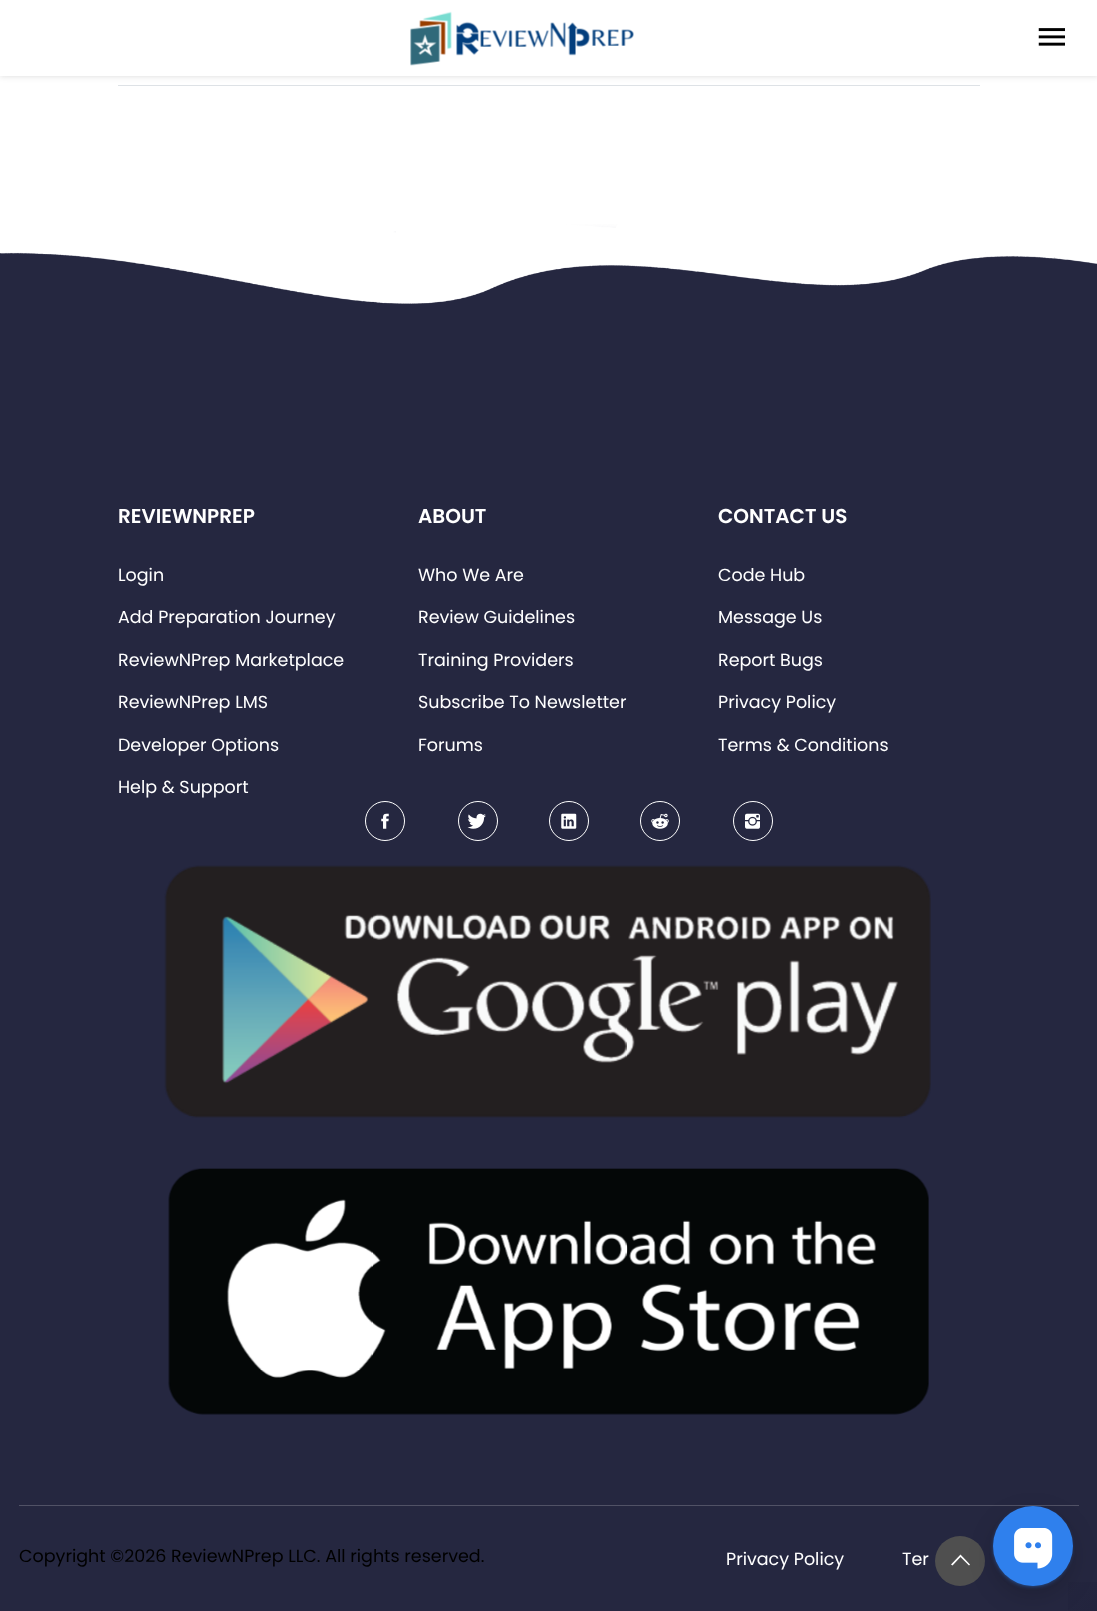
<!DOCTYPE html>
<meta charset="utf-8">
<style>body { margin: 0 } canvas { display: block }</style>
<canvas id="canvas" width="1097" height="1611"></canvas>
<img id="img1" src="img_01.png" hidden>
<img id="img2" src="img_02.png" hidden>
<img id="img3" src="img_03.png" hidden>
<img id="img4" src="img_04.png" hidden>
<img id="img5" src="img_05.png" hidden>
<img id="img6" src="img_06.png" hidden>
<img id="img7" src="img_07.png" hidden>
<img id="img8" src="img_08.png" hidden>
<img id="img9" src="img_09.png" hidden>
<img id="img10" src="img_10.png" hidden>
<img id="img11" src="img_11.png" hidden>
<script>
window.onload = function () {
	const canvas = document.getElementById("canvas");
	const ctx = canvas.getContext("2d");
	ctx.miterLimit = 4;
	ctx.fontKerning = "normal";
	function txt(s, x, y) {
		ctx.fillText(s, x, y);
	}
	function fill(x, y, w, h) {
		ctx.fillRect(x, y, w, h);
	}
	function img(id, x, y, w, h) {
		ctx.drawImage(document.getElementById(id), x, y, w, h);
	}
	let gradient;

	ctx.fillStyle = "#FFFFFF";
	fill(0, 0, 1097, 1611);
	ctx.fillStyle = "#DEE2E6";
	fill(118, 85, 862, 1);
	ctx.fillStyle = "rgba(0, 0, 0, 0.15)";
	ctx.filter = "blur(3px)";
	ctx.beginPath();
	ctx.rect(0, 0, 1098, 76);
	ctx.fill();
	ctx.filter = "none";
	ctx.fillStyle = "#FFFFFF";
	fill(0, 0, 1097, 76);
	img("img1", 410, 11, 224, 55);
	img("img2", 1038, 28, 27, 18);
	ctx.fillStyle = "#252740";
	fill(0, 224, 1097, 1387);
	img("img3", 0, 224, 1097, 80);
	ctx.beginPath();
	ctx.arc(385, 821, 19.5, 0, Math.PI * 2);
	ctx.strokeStyle = "#FFFFFF";
	ctx.stroke();
	img("img4", 381, 813, 8, 16);
	ctx.beginPath();
	ctx.arc(478, 821, 19.5, 0, Math.PI * 2);
	ctx.stroke();
	img("img5", 467, 813, 19, 16);
	ctx.beginPath();
	ctx.arc(569, 821, 19.5, 0, Math.PI * 2);
	ctx.stroke();
	img("img6", 561, 813, 16, 16);
	ctx.beginPath();
	ctx.arc(660, 821, 19.5, 0, Math.PI * 2);
	ctx.stroke();
	img("img7", 651, 813, 18, 16);
	ctx.beginPath();
	ctx.arc(753, 821, 19.5, 0, Math.PI * 2);
	ctx.stroke();
	img("img8", 745, 813, 15, 16);
	img("img9", 164, 865, 767, 253);
	img("img10", 168, 1168, 761, 247);
	ctx.fillStyle = "#515266";
	fill(19, 1505, 1060, 1);
	gradient = ctx.createLinearGradient(973, 1486, 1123, 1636);
	gradient.addColorStop(0.5, "rgba(14, 14, 41, 0)");
	gradient.addColorStop(1, "rgba(14, 14, 41, 0.2)");
	ctx.fillStyle = gradient;
	fill(1068, 1582, 29, 29);
	ctx.fillStyle = "#4F4F4F";
	ctx.beginPath();
	ctx.arc(960, 1561, 25, 0, Math.PI * 2);
	ctx.fill();
	ctx.fillStyle = "#FFFFFF";
	ctx.beginPath();
	ctx.moveTo(969, 1565.5);
	ctx.lineTo(960.5, 1557);
	ctx.lineTo(952.5, 1565.5);
	ctx.lineTo(951, 1564.5);
	ctx.lineTo(960.5, 1554.5);
	ctx.lineTo(970, 1564.5);
	ctx.closePath();
	ctx.fill();
	ctx.fillStyle = "rgba(0, 0, 0, 0.16)";
	ctx.filter = "blur(12.5px)";
	ctx.beginPath();
	ctx.roundRect(993, 1516, 80, 80, 40);
	ctx.fill();
	ctx.filter = "none";
	ctx.fillStyle = "#2F80ED";
	ctx.filter = "blur(2.5px)";
	ctx.beginPath();
	ctx.roundRect(995, 1510, 75, 75, 37.5);
	ctx.fill();
	ctx.filter = "none";
	ctx.beginPath();
	ctx.arc(1033, 1546, 40, 0, Math.PI * 2);
	ctx.fill();
	img("img11", 1014, 1528, 39, 41);
	ctx.font = "600 20px Poppins";
	ctx.fillStyle = "#FFFFFF";
	txt("REVIEWNPREP", 118, 523);
	ctx.font = "17.5px Poppins";
	txt("Login", 118, 581);
	txt("Add Preparation Journey", 118, 623);
	txt("ReviewNPrep Marketplace", 118, 666);
	txt("ReviewNPrep LMS", 118, 708);
	txt("Developer Options", 118, 751);
	txt("Help & Support", 118, 793);
	ctx.font = "600 20px Poppins";
	txt("ABOUT", 418, 523);
	ctx.font = "17.5px Poppins";
	txt("Who We Are", 418, 581);
	txt("Review Guidelines", 418, 623);
	txt("Training Providers", 418, 666);
	txt("Subscribe To Newsletter", 418, 708);
	txt("Forums", 418, 751);
	ctx.font = "600 20px Poppins";
	txt("CONTACT US", 718, 523);
	ctx.font = "17.5px Poppins";
	txt("Code Hub", 718, 581);
	txt("Message Us", 718, 623);
	txt("Report Bugs", 718, 666);
	txt("Privacy Policy", 718, 708);
	txt("Terms & Conditions", 718, 751);
	ctx.fillStyle = "#000000";
	txt("Copyright ©2026 ReviewNPrep LLC. All rights reserved.", 19, 1562);
	ctx.fillStyle = "#FFFFFF";
	txt("Privacy Policy", 726, 1565);
	txt("Ter", 902, 1565);
};
</script>
